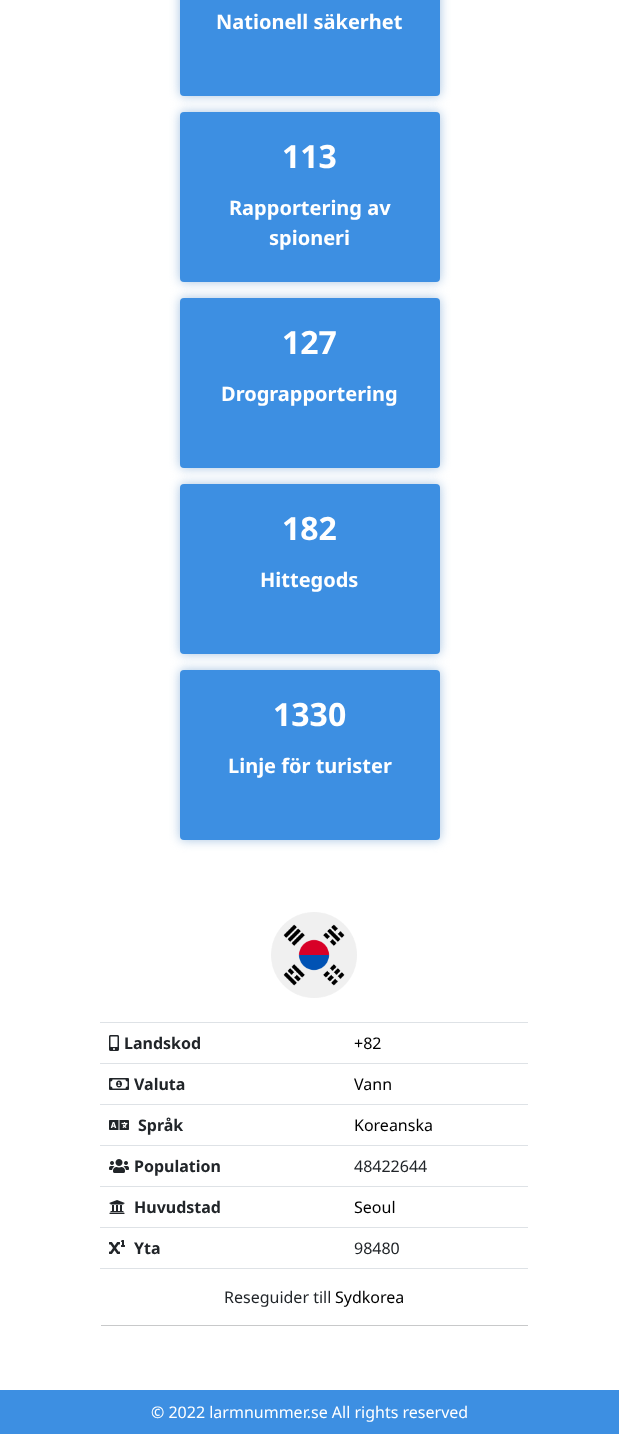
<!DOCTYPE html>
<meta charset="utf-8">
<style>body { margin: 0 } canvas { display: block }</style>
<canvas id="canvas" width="619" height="1434"></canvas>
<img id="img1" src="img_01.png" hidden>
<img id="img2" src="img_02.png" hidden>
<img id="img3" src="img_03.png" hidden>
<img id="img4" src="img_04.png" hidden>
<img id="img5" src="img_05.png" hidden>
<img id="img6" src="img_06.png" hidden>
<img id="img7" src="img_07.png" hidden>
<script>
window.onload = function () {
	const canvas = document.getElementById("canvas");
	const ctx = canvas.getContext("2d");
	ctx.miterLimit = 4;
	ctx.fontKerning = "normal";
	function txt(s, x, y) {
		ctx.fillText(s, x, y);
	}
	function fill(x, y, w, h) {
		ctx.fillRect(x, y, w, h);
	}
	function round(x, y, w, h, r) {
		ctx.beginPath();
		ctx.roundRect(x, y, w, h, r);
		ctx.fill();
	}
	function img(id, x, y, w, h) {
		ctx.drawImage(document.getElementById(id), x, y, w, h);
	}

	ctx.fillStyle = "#FFFFFF";
	fill(0, 0, 619, 1434);
	ctx.fillStyle = "#A5C3E1";
	ctx.filter = "blur(5.5px)";
	ctx.beginPath();
	ctx.roundRect(180, -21, 260, 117, 4);
	ctx.fill();
	ctx.filter = "none";
	ctx.fillStyle = "#3D8FE2";
	round(180, -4, 260, 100, 4);
	ctx.fillStyle = "#A5C3E1";
	ctx.filter = "blur(5.5px)";
	ctx.beginPath();
	ctx.roundRect(180, 112, 260, 170, 4);
	ctx.fill();
	ctx.filter = "none";
	ctx.fillStyle = "#3D8FE2";
	round(180, 112, 260, 170, 4);
	ctx.fillStyle = "#A5C3E1";
	ctx.filter = "blur(5.5px)";
	ctx.beginPath();
	ctx.roundRect(180, 298, 260, 170, 4);
	ctx.fill();
	ctx.filter = "none";
	ctx.fillStyle = "#3D8FE2";
	round(180, 298, 260, 170, 4);
	ctx.fillStyle = "#A5C3E1";
	ctx.filter = "blur(5.5px)";
	ctx.beginPath();
	ctx.roundRect(180, 484, 260, 170, 4);
	ctx.fill();
	ctx.filter = "none";
	ctx.fillStyle = "#3D8FE2";
	round(180, 484, 260, 170, 4);
	ctx.fillStyle = "#A5C3E1";
	ctx.filter = "blur(5.5px)";
	ctx.beginPath();
	ctx.roundRect(180, 670, 260, 170, 4);
	ctx.fill();
	ctx.filter = "none";
	ctx.fillStyle = "#3D8FE2";
	round(180, 670, 260, 170, 4);
	ctx.fillStyle = "#DEE2E6";
	fill(100, 1022, 428, 1);
	img("img1", 271, 912, 86, 86);
	img("img2", 109, 1035, 10, 16);
	fill(100, 1063, 428, 1);
	img("img3", 109, 1078, 20, 12);
	fill(100, 1104, 428, 1);
	img("img4", 109, 1120, 20, 10);
	fill(100, 1145, 428, 1);
	img("img5", 109, 1159, 20, 14);
	fill(100, 1186, 428, 1);
	img("img6", 109, 1200, 16, 14);
	fill(100, 1227, 428, 1);
	img("img7", 109, 1240, 16, 14);
	fill(100, 1268, 428, 1);
	ctx.fillStyle = "#C8C9CA";
	fill(101, 1325, 427, 1);
	ctx.fillStyle = "#3D8FE2";
	fill(0, 1390, 619, 44);
	ctx.font = "bold 20px Noto Sans";
	ctx.fillStyle = "#FFFFFF";
	txt("Nationell säkerhet", 216, 29);
	ctx.font = "bold 32px Noto Sans";
	txt("113", 282, 168);
	ctx.font = "bold 20px Noto Sans";
	txt("Rapportering av", 229, 215);
	txt("spioneri", 269, 245);
	ctx.font = "bold 32px Noto Sans";
	txt("127", 282, 354);
	ctx.font = "bold 20px Noto Sans";
	txt("Drograpportering", 221, 401);
	ctx.font = "bold 32px Noto Sans";
	txt("182", 282, 540);
	ctx.font = "bold 20px Noto Sans";
	txt("Hittegods", 260, 587);
	ctx.font = "bold 32px Noto Sans";
	txt("1330", 273, 726);
	ctx.font = "bold 20px Noto Sans";
	txt("Linje för turister", 228, 773);
	ctx.font = "bold 16px Noto Sans";
	ctx.fillStyle = "#212529";
	txt("Landskod", 124, 1049);
	ctx.font = "16px Noto Sans";
	ctx.fillStyle = "#000000";
	txt("+82", 354, 1049);
	ctx.font = "bold 16px Noto Sans";
	ctx.fillStyle = "#212529";
	txt("Valuta", 134, 1090);
	ctx.font = "16px Noto Sans";
	ctx.fillStyle = "#000000";
	txt("Vann", 354, 1090);
	ctx.font = "bold 16px Noto Sans";
	ctx.fillStyle = "#212529";
	txt("Språk", 138, 1131);
	ctx.font = "16px Noto Sans";
	ctx.fillStyle = "#000000";
	txt("Koreanska", 354, 1131);
	ctx.font = "bold 16px Noto Sans";
	ctx.fillStyle = "#212529";
	txt("Population", 134, 1172);
	ctx.font = "16px Noto Sans";
	txt("48422644", 354, 1172);
	ctx.font = "bold 16px Noto Sans";
	txt("Huvudstad", 134, 1213);
	ctx.font = "16px Noto Sans";
	ctx.fillStyle = "#000000";
	txt("Seoul", 354, 1213);
	ctx.font = "bold 16px Noto Sans";
	ctx.fillStyle = "#212529";
	txt("Yta", 134, 1254);
	ctx.font = "16px Noto Sans";
	txt("98480", 354, 1254);
	txt("Reseguider till", 224, 1303);
	ctx.fillStyle = "#000000";
	txt("Sydkorea", 335, 1303);
	ctx.fillStyle = "#FFFFFF";
	txt("© 2022 larmnummer.se All rights reserved", 151, 1418);
};
</script>
